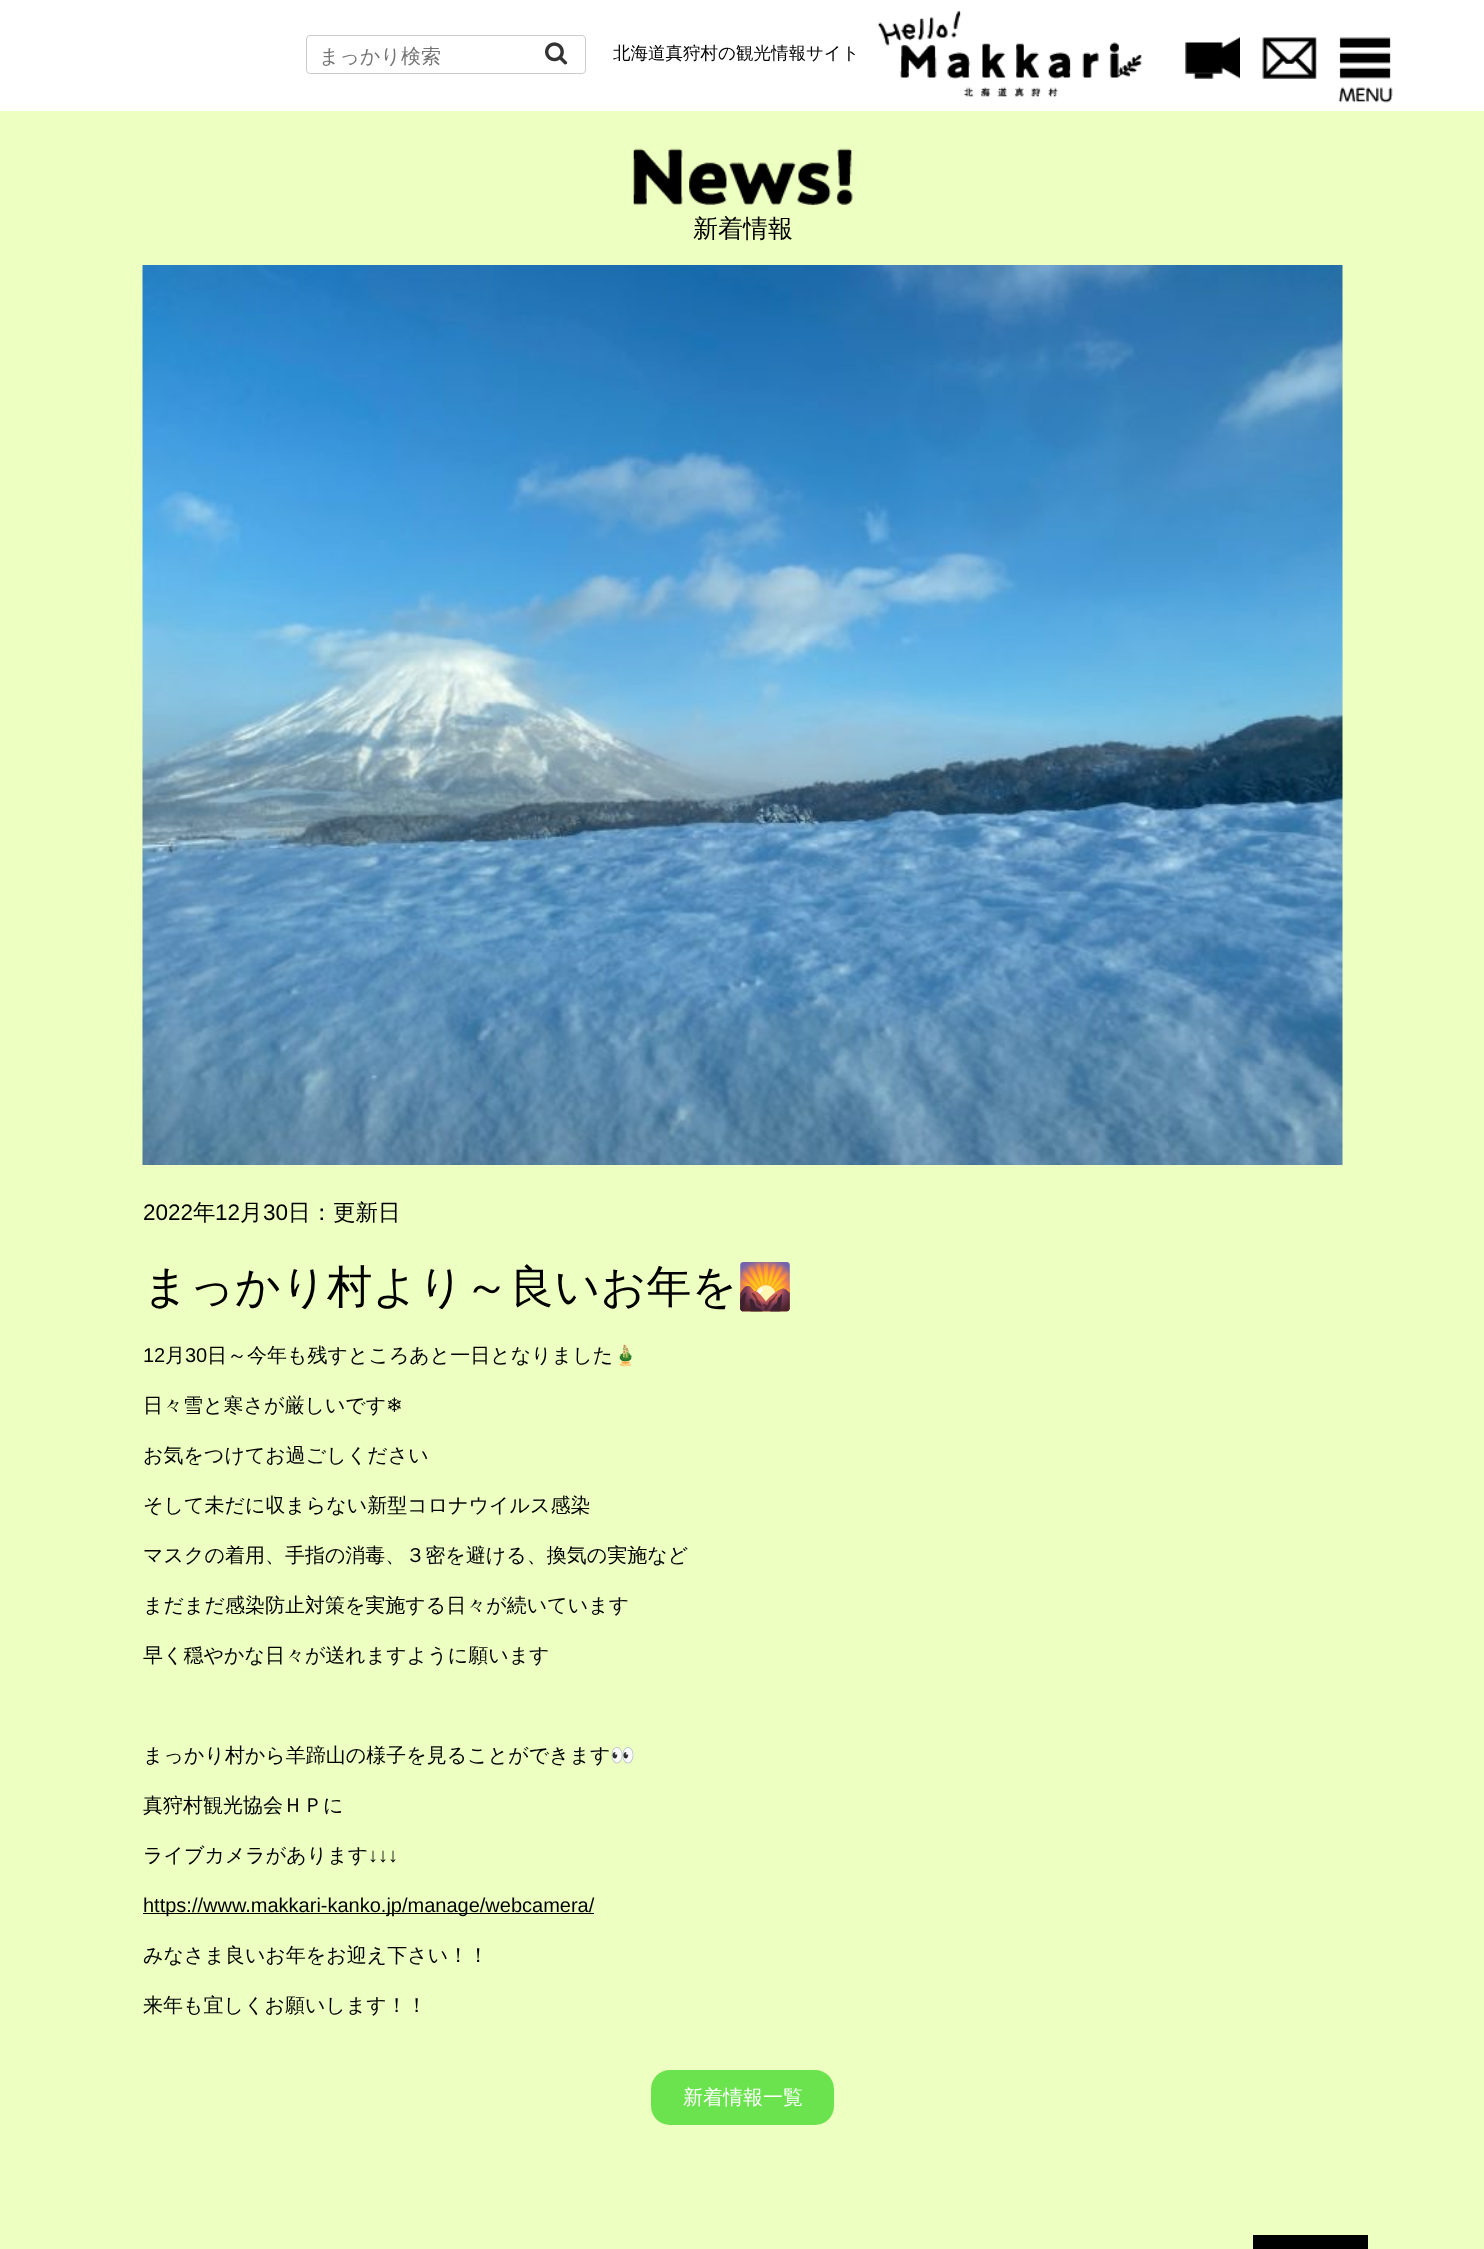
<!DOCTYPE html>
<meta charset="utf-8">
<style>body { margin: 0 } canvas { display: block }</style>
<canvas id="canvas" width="1484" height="2249"></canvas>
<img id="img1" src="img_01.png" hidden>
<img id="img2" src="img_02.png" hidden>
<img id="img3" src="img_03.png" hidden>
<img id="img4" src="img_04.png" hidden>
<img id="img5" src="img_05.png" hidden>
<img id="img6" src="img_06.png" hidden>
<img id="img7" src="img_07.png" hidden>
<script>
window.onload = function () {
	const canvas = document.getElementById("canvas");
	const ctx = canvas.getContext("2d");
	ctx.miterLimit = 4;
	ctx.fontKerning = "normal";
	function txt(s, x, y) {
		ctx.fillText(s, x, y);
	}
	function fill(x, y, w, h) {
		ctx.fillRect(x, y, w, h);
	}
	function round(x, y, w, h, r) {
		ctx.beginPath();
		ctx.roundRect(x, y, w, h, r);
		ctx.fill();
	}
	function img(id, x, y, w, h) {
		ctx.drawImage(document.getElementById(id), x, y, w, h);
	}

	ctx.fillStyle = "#EDFFC1";
	fill(0, 0, 1484, 2249);
	ctx.fillStyle = "#FFFFFF";
	fill(0, 0, 1484, 111);
	ctx.beginPath();
	ctx.roundRect(306.5, 35.5, 279, 38, 3.5);
	ctx.strokeStyle = "#CCCCCC";
	ctx.stroke();
	img("img1", 545, 42, 23, 23);
	img("img2", 877, 11, 265, 87);
	img("img3", 1185, 37, 55, 42);
	img("img4", 1262, 37, 55, 42);
	img("img5", 1338, 37, 55, 66);
	img("img6", 633, 148, 220, 57);
	img("img7", 142, 265, 1201, 900);
	ctx.fillStyle = "#000000";
	fill(143, 1913, 451, 1);
	ctx.fillStyle = "#6BE34E";
	round(651, 2070, 183, 55, 19);
	ctx.fillStyle = "#000000";
	fill(1253, 2235, 115, 14);
	ctx.font = "500 20px WenQuanYi Zen Hei";
	ctx.fillStyle = "#757575";
	txt("まっかり検索", 319, 63);
	ctx.font = "500 17.5px WenQuanYi Zen Hei";
	ctx.fillStyle = "#000000";
	txt("北海道真狩村の観光情報サイト", 613, 59);
	ctx.font = "500 25px WenQuanYi Zen Hei";
	txt("新着情報", 693, 237);
	ctx.font = "22.5px Liberation Sans";
	txt("2022", 143, 1220);
	ctx.font = "500 22.5px WenQuanYi Zen Hei";
	txt("年", 193, 1220);
	ctx.font = "22.5px Liberation Sans";
	txt("12", 215, 1220);
	ctx.font = "500 22.5px WenQuanYi Zen Hei";
	txt("月", 240, 1220);
	ctx.font = "22.5px Liberation Sans";
	txt("30", 263, 1220);
	ctx.font = "500 22.5px WenQuanYi Zen Hei";
	txt("日：更新日", 288, 1220);
	ctx.font = "500 45px WenQuanYi Zen Hei";
	txt("まっかり村より～良いお年を", 143, 1302);
	ctx.font = "45px Noto Color Emoji";
	txt("🌄", 737, 1302);
	ctx.font = "20px Liberation Sans";
	txt("12", 143, 1362);
	ctx.font = "500 20px WenQuanYi Zen Hei";
	txt("月", 165, 1362);
	ctx.font = "20px Liberation Sans";
	txt("30", 185, 1362);
	ctx.font = "500 20px WenQuanYi Zen Hei";
	txt("日～今年も残すところあと一日となりました", 207, 1362);
	ctx.font = "20px Noto Color Emoji";
	txt("🎍", 613, 1362);
	ctx.font = "500 20px WenQuanYi Zen Hei";
	txt("日々雪と寒さが厳しいです", 143, 1412);
	ctx.font = "20px DejaVu Sans";
	txt("❄", 386, 1412);
	ctx.font = "500 20px WenQuanYi Zen Hei";
	txt("お気をつけてお過ごしください", 143, 1462);
	txt("そして未だに収まらない新型コロナウイルス感染", 143, 1512);
	txt("マスクの着用、手指の消毒、３密を避ける、換気の実施など", 143, 1562);
	txt("まだまだ感染防止対策を実施する日々が続いています", 143, 1612);
	txt("早く穏やかな日々が送れますように願います", 143, 1662);
	txt("まっかり村から羊蹄山の様子を見ることができます", 143, 1762);
	ctx.font = "20px Noto Color Emoji";
	txt("👀", 610, 1762);
	ctx.font = "500 20px WenQuanYi Zen Hei";
	txt("真狩村観光協会ＨＰに", 143, 1812);
	txt("ライブカメラがあります", 143, 1862);
	ctx.font = "20px Liberation Sans";
	txt("↓↓↓", 368, 1862);
	txt("https://www.makkari-kanko.jp/manage/webcamera/", 143, 1912);
	ctx.font = "500 20px WenQuanYi Zen Hei";
	txt("みなさま良いお年をお迎え下さい！！", 143, 1962);
	txt("来年も宜しくお願いします！！", 143, 2012);
	ctx.fillStyle = "#FFFFFF";
	txt("新着情報一覧", 683, 2104);
};
</script>
